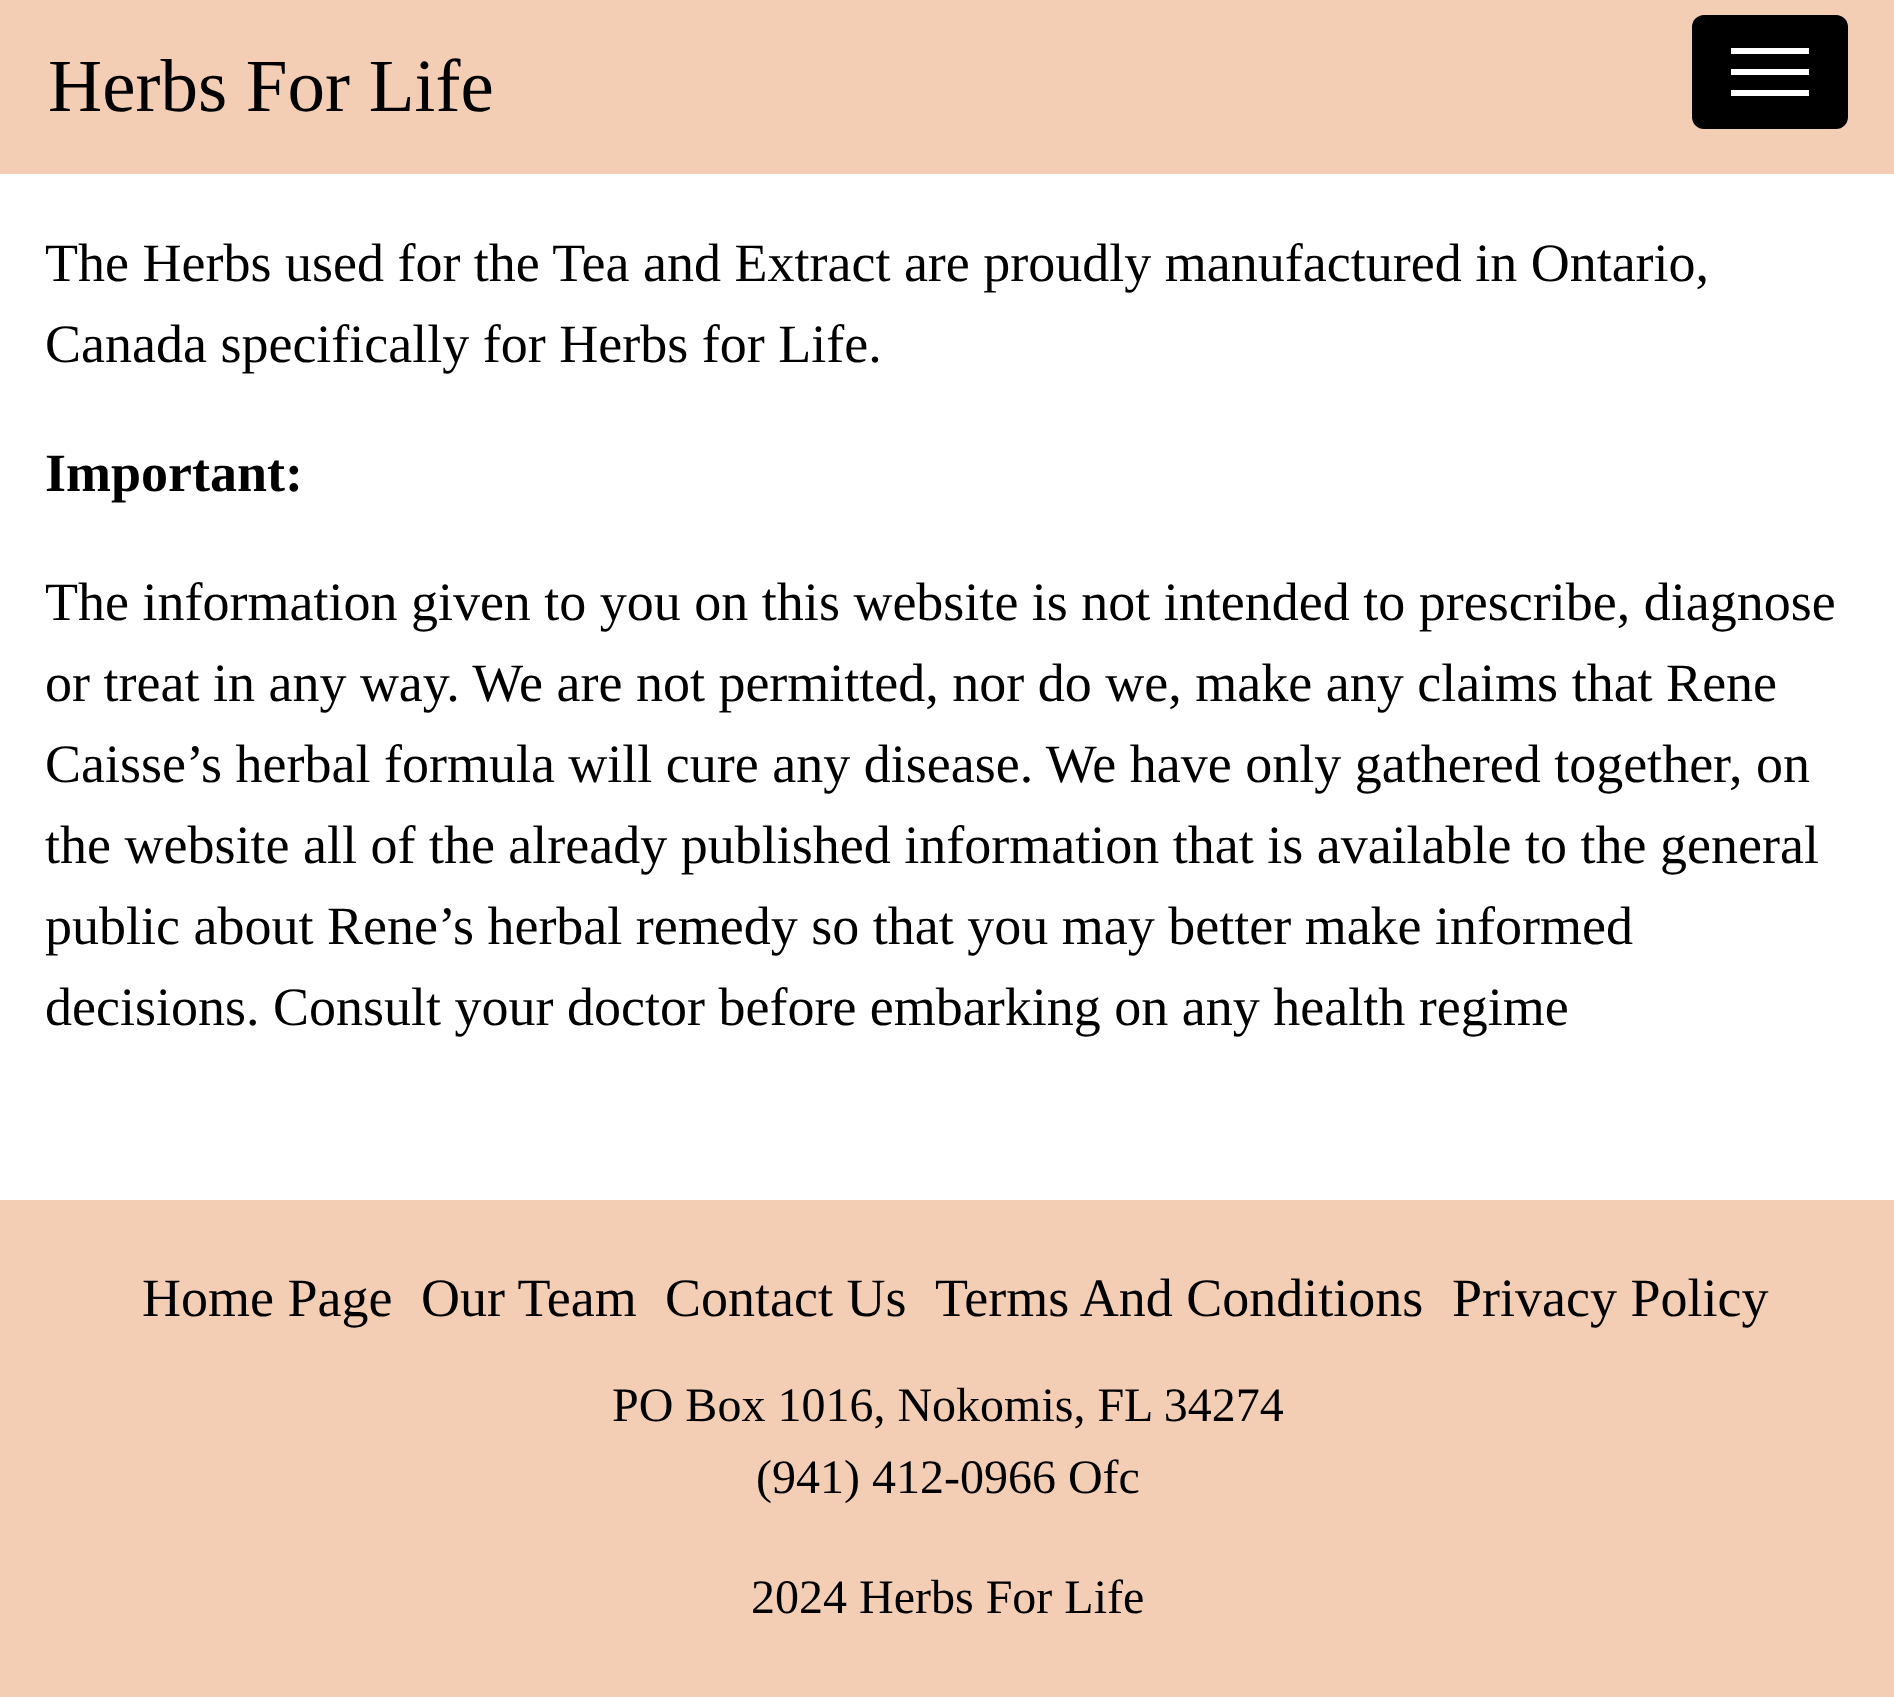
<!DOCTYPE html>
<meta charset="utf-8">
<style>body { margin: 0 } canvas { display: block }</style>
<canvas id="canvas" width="1894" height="1697"></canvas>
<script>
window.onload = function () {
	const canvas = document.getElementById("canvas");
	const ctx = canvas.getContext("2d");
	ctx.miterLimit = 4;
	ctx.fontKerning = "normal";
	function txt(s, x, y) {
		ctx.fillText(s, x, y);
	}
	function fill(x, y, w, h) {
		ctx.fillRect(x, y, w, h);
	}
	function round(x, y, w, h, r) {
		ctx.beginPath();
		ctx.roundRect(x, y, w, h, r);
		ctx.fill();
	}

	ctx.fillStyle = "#FFFFFF";
	fill(0, 0, 1894, 1697);
	ctx.fillStyle = "#F3CDB4";
	fill(0, 0, 1894, 174);
	ctx.fillStyle = "#000000";
	round(1692, 15, 156, 114, 12);
	ctx.fillStyle = "#FFFFFF";
	fill(1731, 48, 78, 6);
	fill(1731, 69, 78, 6);
	fill(1731, 90, 78, 6);
	ctx.fillStyle = "#F3CDB4";
	fill(0, 1200, 1894, 497);
	ctx.font = "75px Liberation Serif";
	ctx.fillStyle = "#000000";
	txt("Herbs For Life", 48, 111);
	ctx.font = "54px Liberation Serif";
	txt("The Herbs used for the Tea and Extract are proudly manufactured in Ontario,", 45, 281);
	txt("Canada specifically for Herbs for Life.", 45, 362);
	ctx.font = "bold 54px Liberation Serif";
	txt("Important:", 45, 491);
	ctx.font = "54px Liberation Serif";
	txt("The information given to you on this website is not intended to prescribe, diagnose", 45, 620);
	txt("or treat in any way. We are not permitted, nor do we, make any claims that Rene", 45, 701);
	txt("Caisse’s herbal formula will cure any disease. We have only gathered together, on", 45, 782);
	txt("the website all of the already published information that is available to the general", 45, 863);
	txt("public about Rene’s herbal remedy so that you may better make informed", 45, 944);
	txt("decisions. Consult your doctor before embarking on any health regime", 45, 1025);
	txt("Home Page", 142, 1316);
	txt("Our Team", 421, 1316);
	txt("Contact Us", 665, 1316);
	txt("Terms And Conditions", 935, 1316);
	txt("Privacy Policy", 1452, 1316);
	ctx.font = "48px Liberation Serif";
	txt("PO Box 1016, Nokomis, FL 34274", 612, 1421);
	txt("(941) 412-0966 Ofc", 756, 1493);
	txt("2024 Herbs For Life", 751, 1613);
};
</script>
